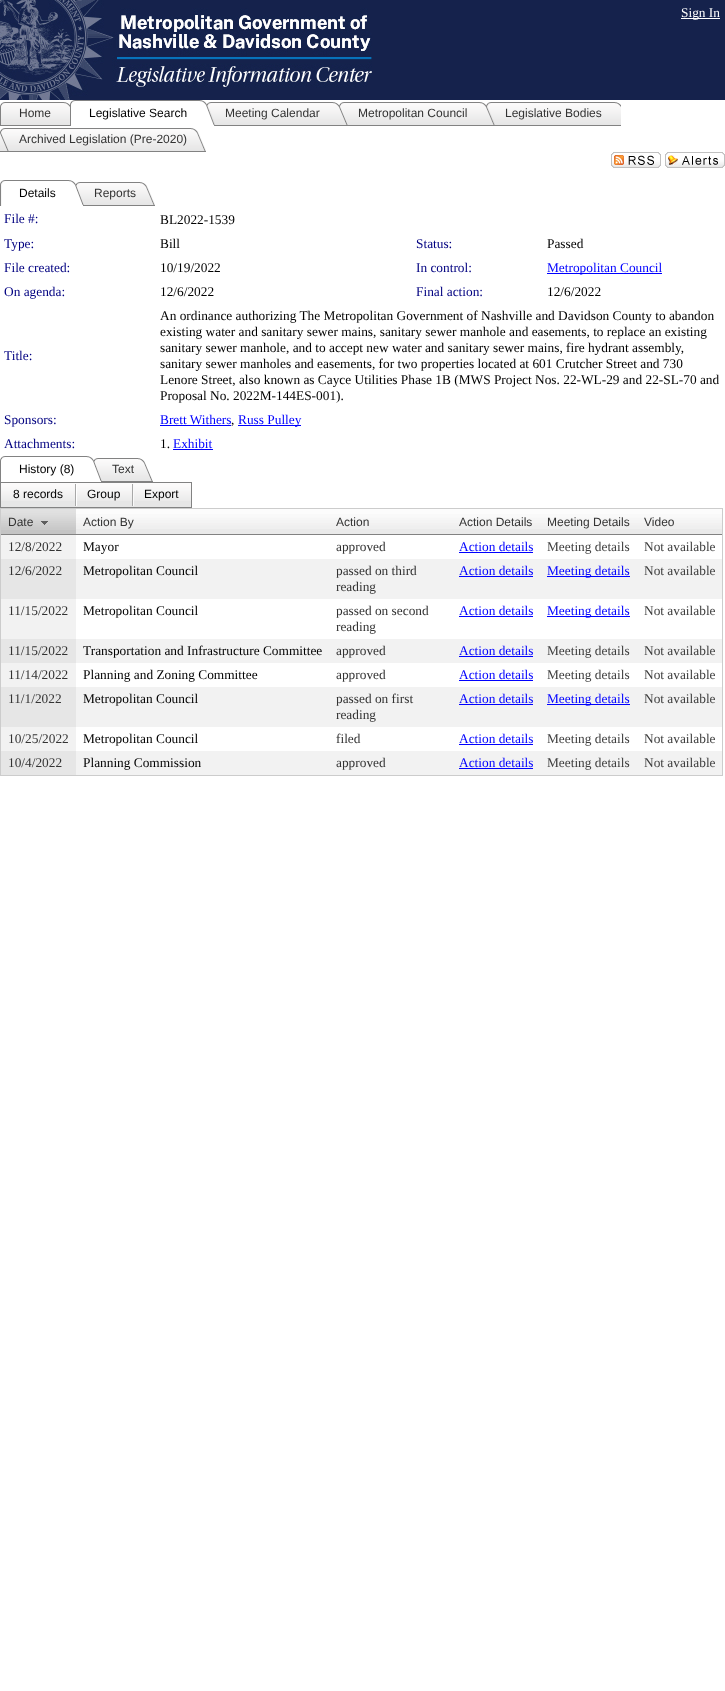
<!DOCTYPE html>
<meta charset="utf-8">
<style>body { margin: 0 } canvas { display: block }</style>
<canvas id="canvas" width="725" height="1691"></canvas>
<img id="img1" src="img_01.png" hidden>
<img id="img2" src="img_02.png" hidden>
<img id="img3" src="img_03.png" hidden>
<img id="img4" src="img_04.png" hidden>
<img id="img5" src="img_05.png" hidden>
<img id="img6" src="img_06.png" hidden>
<img id="img7" src="img_07.png" hidden>
<img id="img8" src="img_08.png" hidden>
<img id="img9" src="img_09.png" hidden>
<img id="img10" src="img_10.png" hidden>
<img id="img11" src="img_11.png" hidden>
<img id="img12" src="img_12.png" hidden>
<img id="img13" src="img_13.png" hidden>
<img id="img14" src="img_14.png" hidden>
<img id="img15" src="img_15.png" hidden>
<img id="img16" src="img_16.png" hidden>
<img id="img17" src="img_17.png" hidden>
<img id="img18" src="img_18.png" hidden>
<img id="img19" src="img_19.png" hidden>
<img id="img20" src="img_20.png" hidden>
<img id="img21" src="img_21.png" hidden>
<img id="img22" src="img_22.png" hidden>
<img id="img23" src="img_23.png" hidden>
<img id="img24" src="img_24.png" hidden>
<img id="img25" src="img_25.png" hidden>
<img id="img26" src="img_26.png" hidden>
<img id="img27" src="img_27.png" hidden>
<img id="img28" src="img_28.png" hidden>
<img id="img29" src="img_29.png" hidden>
<img id="img30" src="img_30.png" hidden>
<script>
window.onload = function () {
	const canvas = document.getElementById("canvas");
	const ctx = canvas.getContext("2d");
	ctx.miterLimit = 4;
	ctx.fontKerning = "normal";
	function txt(s, x, y) {
		ctx.fillText(s, x, y);
	}
	function fill(x, y, w, h) {
		ctx.fillRect(x, y, w, h);
	}
	function img(id, x, y, w, h) {
		ctx.drawImage(document.getElementById(id), x, y, w, h);
	}

	ctx.fillStyle = "#FFFFFF";
	fill(0, 0, 725, 1691);
	ctx.fillStyle = "#15224C";
	fill(372, 0, 353, 100);
	img("img1", 0, 0, 372, 100);
	ctx.fillStyle = "#FFFFFF";
	fill(681, 18, 39, 1);
	img("img2", 0, 102, 9, 24);
	img("img3", 9, 102, 61, 24);
	img("img4", 70, 100, 9, 26);
	img("img5", 79, 100, 127, 5);
	img("img6", 206, 102, 9, 24);
	img("img7", 215, 102, 124, 24);
	img("img8", 339, 102, 9, 24);
	img("img9", 348, 102, 138, 24);
	img("img10", 486, 102, 9, 24);
	img("img11", 495, 102, 126, 24);
	img("img8", 0, 128, 9, 24);
	img("img12", 9, 128, 197, 24);
	img("img13", 611, 152, 50, 16);
	img("img14", 665, 152, 60, 16);
	img("img15", 0, 180, 10, 26);
	img("img16", 9, 180, 66, 5);
	img("img17", 75, 182, 9, 24);
	img("img18", 84, 182, 71, 24);
	ctx.fillStyle = "#0000FF";
	fill(547, 273, 115, 1);
	fill(160, 425, 71, 1);
	fill(238, 425, 63, 1);
	fill(173, 449, 40, 1);
	img("img4", 0, 456, 9, 26);
	img("img19", 9, 456, 84, 5);
	img("img17", 93, 458, 9, 24);
	img("img20", 102, 458, 51, 24);
	ctx.fillStyle = "#E6E6E6";
	fill(1, 501, 190, 6);
	img("img21", 1, 483, 190, 18);
	ctx.strokeStyle = "#828282";
	ctx.strokeRect(0.5, 482.5, 191, 25);
	img("img22", 75, 484, 2, 22);
	img("img23", 132, 484, 2, 22);
	ctx.strokeStyle = "#CCCCCC";
	ctx.strokeRect(0.5, 508.5, 722, 267);
	ctx.fillStyle = "#C4C4C4";
	fill(1, 530, 75, 4);
	img("img24", 1, 509, 75, 21);
	ctx.fillStyle = "#828282";
	fill(1, 534, 721, 1);
	img("img25", 41, 521, 7, 4);
	ctx.fillStyle = "#EAEAEA";
	fill(76, 529, 646, 5);
	img("img26", 76, 509, 253, 20);
	img("img27", 329, 509, 123, 20);
	img("img28", 452, 509, 88, 20);
	img("img29", 540, 509, 97, 20);
	img("img30", 637, 509, 85, 20);
	ctx.fillStyle = "#F2F2F2";
	fill(1, 535, 75, 24);
	ctx.fillStyle = "#0000FF";
	fill(459, 552, 74, 1);
	ctx.fillStyle = "#F2F2F2";
	fill(76, 559, 646, 40);
	ctx.fillStyle = "#E6E6E6";
	fill(1, 559, 75, 40);
	ctx.fillStyle = "#0000FF";
	fill(459, 576, 74, 1);
	fill(547, 576, 83, 1);
	ctx.fillStyle = "#F2F2F2";
	fill(1, 599, 75, 40);
	ctx.fillStyle = "#0000FF";
	fill(459, 616, 74, 1);
	fill(547, 616, 83, 1);
	ctx.fillStyle = "#F2F2F2";
	fill(76, 639, 646, 24);
	ctx.fillStyle = "#E6E6E6";
	fill(1, 639, 75, 24);
	ctx.fillStyle = "#0000FF";
	fill(459, 656, 74, 1);
	ctx.fillStyle = "#F2F2F2";
	fill(1, 663, 75, 24);
	ctx.fillStyle = "#0000FF";
	fill(459, 680, 74, 1);
	ctx.fillStyle = "#F2F2F2";
	fill(76, 687, 646, 40);
	ctx.fillStyle = "#E6E6E6";
	fill(1, 687, 75, 40);
	ctx.fillStyle = "#0000FF";
	fill(459, 704, 74, 1);
	fill(547, 704, 83, 1);
	ctx.fillStyle = "#F2F2F2";
	fill(1, 727, 75, 24);
	ctx.fillStyle = "#0000FF";
	fill(459, 744, 74, 1);
	ctx.fillStyle = "#F2F2F2";
	fill(76, 751, 646, 24);
	ctx.fillStyle = "#E6E6E6";
	fill(1, 751, 75, 24);
	ctx.fillStyle = "#0000FF";
	fill(459, 768, 74, 1);
	ctx.font = "13.35px Liberation Serif";
	ctx.fillStyle = "#FFFFFF";
	txt("Sign In", 681, 17);
	ctx.font = "12px Liberation Sans";
	ctx.fillStyle = "#333333";
	txt("Home", 19, 117);
	ctx.fillStyle = "#000000";
	txt("Legislative Search", 89, 117);
	ctx.fillStyle = "#333333";
	txt("Meeting Calendar", 225, 117);
	txt("Metropolitan Council", 358, 117);
	txt("Legislative Bodies", 505, 117);
	txt("Archived Legislation (Pre-2020)", 19, 143);
	ctx.fillStyle = "#000000";
	txt("Details", 19, 197);
	ctx.fillStyle = "#333333";
	txt("Reports", 94, 197);
	ctx.font = "13.35px Liberation Serif";
	ctx.fillStyle = "#000080";
	txt("File #:", 4, 223);
	ctx.fillStyle = "#000000";
	txt("BL2022-1539", 160, 224);
	ctx.fillStyle = "#000080";
	txt("Type:", 4, 248);
	ctx.fillStyle = "#000000";
	txt("Bill", 160, 248);
	ctx.fillStyle = "#000080";
	txt("Status:", 416, 248);
	ctx.fillStyle = "#000000";
	txt("Passed", 547, 248);
	ctx.fillStyle = "#000080";
	txt("File created:", 4, 272);
	ctx.fillStyle = "#000000";
	txt("10/19/2022", 160, 272);
	ctx.fillStyle = "#000080";
	txt("In control:", 416, 272);
	ctx.fillStyle = "#0000FF";
	txt("Metropolitan Council", 547, 272);
	ctx.fillStyle = "#000080";
	txt("On agenda:", 4, 296);
	ctx.fillStyle = "#000000";
	txt("12/6/2022", 160, 296);
	ctx.fillStyle = "#000080";
	txt("Final action:", 416, 296);
	ctx.fillStyle = "#000000";
	txt("12/6/2022", 547, 296);
	ctx.fillStyle = "#000080";
	txt("Title:", 4, 360);
	ctx.fillStyle = "#000000";
	txt("An ordinance authorizing The Metropolitan Government of Nashville and Davidson County to abandon", 160, 320);
	txt("existing water and sanitary sewer mains, sanitary sewer manhole and easements, to replace an existing", 160, 336);
	txt("sanitary sewer manhole, and to accept new water and sanitary sewer mains, fire hydrant assembly,", 160, 352);
	txt("sanitary sewer manholes and easements, for two properties located at 601 Crutcher Street and 730", 160, 368);
	txt("Lenore Street, also known as Cayce Utilities Phase 1B (MWS Project Nos. 22-WL-29 and 22-SL-70 and", 160, 384);
	txt("Proposal No. 2022M-144ES-001).", 160, 400);
	ctx.fillStyle = "#000080";
	txt("Sponsors:", 4, 424);
	ctx.fillStyle = "#0000FF";
	txt("Brett Withers", 160, 424);
	ctx.fillStyle = "#000000";
	txt(",", 231, 424);
	ctx.fillStyle = "#0000FF";
	txt("Russ Pulley", 238, 424);
	ctx.fillStyle = "#000080";
	txt("Attachments:", 4, 448);
	ctx.fillStyle = "#000000";
	txt("1.", 160, 448);
	ctx.fillStyle = "#0000FF";
	txt("Exhibit", 173, 448);
	ctx.font = "12px Liberation Sans";
	ctx.fillStyle = "#000000";
	txt("History (8)", 19, 473);
	ctx.fillStyle = "#333333";
	txt("Text", 112, 473);
	ctx.fillStyle = "#000000";
	txt("8 records", 13, 498);
	txt("Group", 87, 498);
	txt("Export", 144, 498);
	ctx.fillStyle = "#333333";
	txt("Date", 8, 526);
	txt("Action By", 83, 526);
	txt("Action", 336, 526);
	txt("Action Details", 459, 526);
	txt("Meeting Details", 547, 526);
	txt("Video", 644, 526);
	ctx.font = "13.35px Liberation Serif";
	txt("12/8/2022", 8, 551);
	ctx.fillStyle = "#000000";
	txt("Mayor", 83, 551);
	ctx.fillStyle = "#333333";
	txt("approved", 336, 551);
	ctx.fillStyle = "#0000FF";
	txt("Action details", 459, 551);
	ctx.fillStyle = "#3D3D3D";
	txt("Meeting details", 547, 551);
	txt("Not available", 644, 551);
	ctx.fillStyle = "#333333";
	txt("12/6/2022", 8, 575);
	ctx.fillStyle = "#000000";
	txt("Metropolitan Council", 83, 575);
	ctx.fillStyle = "#333333";
	txt("passed on third", 336, 575);
	txt("reading", 336, 591);
	ctx.fillStyle = "#0000FF";
	txt("Action details", 459, 575);
	txt("Meeting details", 547, 575);
	ctx.fillStyle = "#3D3D3D";
	txt("Not available", 644, 575);
	ctx.fillStyle = "#333333";
	txt("11/15/2022", 8, 615);
	ctx.fillStyle = "#000000";
	txt("Metropolitan Council", 83, 615);
	ctx.fillStyle = "#333333";
	txt("passed on second", 336, 615);
	txt("reading", 336, 631);
	ctx.fillStyle = "#0000FF";
	txt("Action details", 459, 615);
	txt("Meeting details", 547, 615);
	ctx.fillStyle = "#3D3D3D";
	txt("Not available", 644, 615);
	ctx.fillStyle = "#333333";
	txt("11/15/2022", 8, 655);
	ctx.fillStyle = "#000000";
	txt("Transportation and Infrastructure Committee", 83, 655);
	ctx.fillStyle = "#333333";
	txt("approved", 336, 655);
	ctx.fillStyle = "#0000FF";
	txt("Action details", 459, 655);
	ctx.fillStyle = "#3D3D3D";
	txt("Meeting details", 547, 655);
	txt("Not available", 644, 655);
	ctx.fillStyle = "#333333";
	txt("11/14/2022", 8, 679);
	ctx.fillStyle = "#000000";
	txt("Planning and Zoning Committee", 83, 679);
	ctx.fillStyle = "#333333";
	txt("approved", 336, 679);
	ctx.fillStyle = "#0000FF";
	txt("Action details", 459, 679);
	ctx.fillStyle = "#3D3D3D";
	txt("Meeting details", 547, 679);
	txt("Not available", 644, 679);
	ctx.fillStyle = "#333333";
	txt("11/1/2022", 8, 703);
	ctx.fillStyle = "#000000";
	txt("Metropolitan Council", 83, 703);
	ctx.fillStyle = "#333333";
	txt("passed on first", 336, 703);
	txt("reading", 336, 719);
	ctx.fillStyle = "#0000FF";
	txt("Action details", 459, 703);
	txt("Meeting details", 547, 703);
	ctx.fillStyle = "#3D3D3D";
	txt("Not available", 644, 703);
	ctx.fillStyle = "#333333";
	txt("10/25/2022", 8, 743);
	ctx.fillStyle = "#000000";
	txt("Metropolitan Council", 83, 743);
	ctx.fillStyle = "#333333";
	txt("filed", 336, 743);
	ctx.fillStyle = "#0000FF";
	txt("Action details", 459, 743);
	ctx.fillStyle = "#3D3D3D";
	txt("Meeting details", 547, 743);
	txt("Not available", 644, 743);
	ctx.fillStyle = "#333333";
	txt("10/4/2022", 8, 767);
	ctx.fillStyle = "#000000";
	txt("Planning Commission", 83, 767);
	ctx.fillStyle = "#333333";
	txt("approved", 336, 767);
	ctx.fillStyle = "#0000FF";
	txt("Action details", 459, 767);
	ctx.fillStyle = "#3D3D3D";
	txt("Meeting details", 547, 767);
	txt("Not available", 644, 767);
};
</script>
